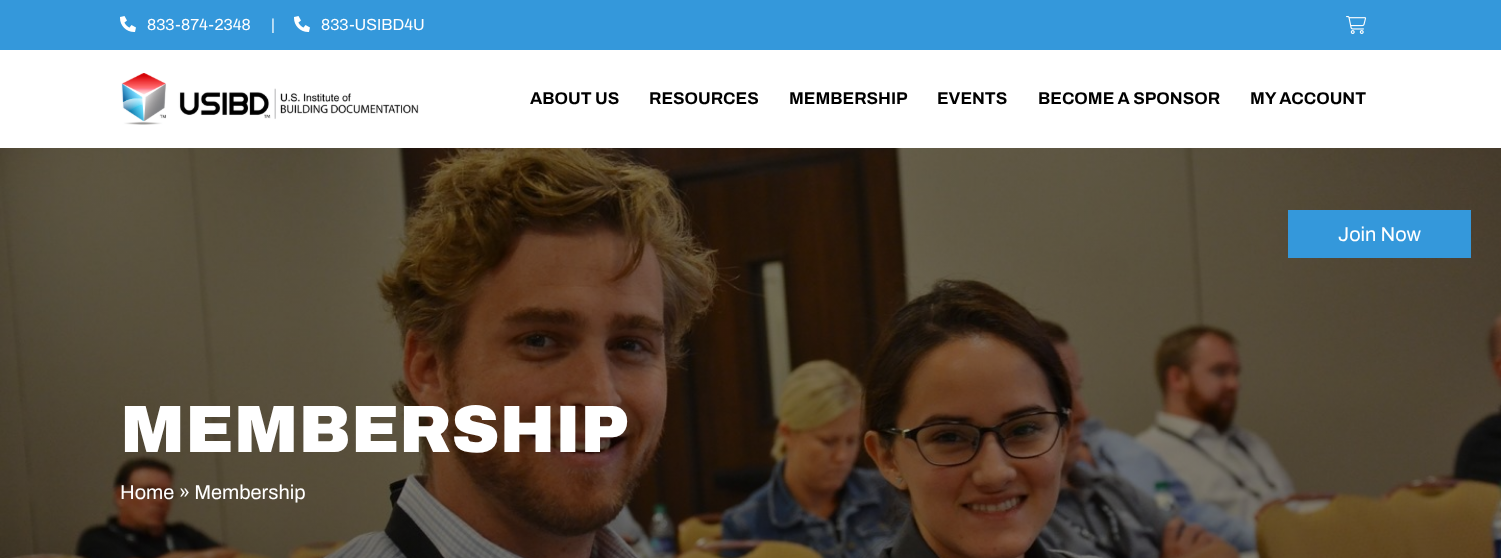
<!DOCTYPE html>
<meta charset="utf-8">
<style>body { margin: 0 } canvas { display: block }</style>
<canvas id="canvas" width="1501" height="558"></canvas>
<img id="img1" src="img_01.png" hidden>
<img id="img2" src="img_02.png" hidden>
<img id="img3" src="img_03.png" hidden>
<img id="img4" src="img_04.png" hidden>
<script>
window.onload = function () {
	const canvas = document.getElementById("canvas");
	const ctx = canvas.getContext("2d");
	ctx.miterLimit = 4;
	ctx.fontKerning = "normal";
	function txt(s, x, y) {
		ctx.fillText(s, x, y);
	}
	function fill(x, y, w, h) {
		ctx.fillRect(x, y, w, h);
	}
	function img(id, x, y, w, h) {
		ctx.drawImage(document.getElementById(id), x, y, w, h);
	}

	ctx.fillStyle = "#3498DB";
	fill(0, 0, 1501, 558);
	img("img1", 120, 16, 16, 16);
	img("img1", 294, 16, 16, 16);
	img("img2", 1346, 16, 21, 18);
	ctx.fillStyle = "#FFFFFF";
	fill(0, 50, 1501, 98);
	img("img3", 121, 73, 298, 52);
	img("img4", 0, 148, 1501, 410);
	ctx.fillStyle = "#3498DB";
	fill(1288, 210, 183, 48);
	ctx.font = "16px Archivo";
	ctx.fillStyle = "#FFFFFF";
	txt("833-874-2348", 147, 30);
	txt("|", 271, 30);
	txt("833-USIBD4U", 321, 30);
	ctx.font = "bold 17px Archivo";
	ctx.fillStyle = "#000000";
	txt("ABOUT US", 530, 104);
	txt("RESOURCES", 649, 104);
	txt("MEMBERSHIP", 789, 104);
	txt("EVENTS", 937, 104);
	txt("BECOME A SPONSOR", 1038, 104);
	txt("MY ACCOUNT", 1250, 104);
	ctx.font = "20px Archivo";
	ctx.fillStyle = "#FFFFFF";
	txt("Join Now", 1338, 241);
	ctx.font = "900 67px Archivo";
	txt("MEMBERSHIP", 120, 452);
	ctx.font = "20px Archivo";
	txt("Home", 120, 499);
	txt("» Membership", 179, 499);
};
</script>
